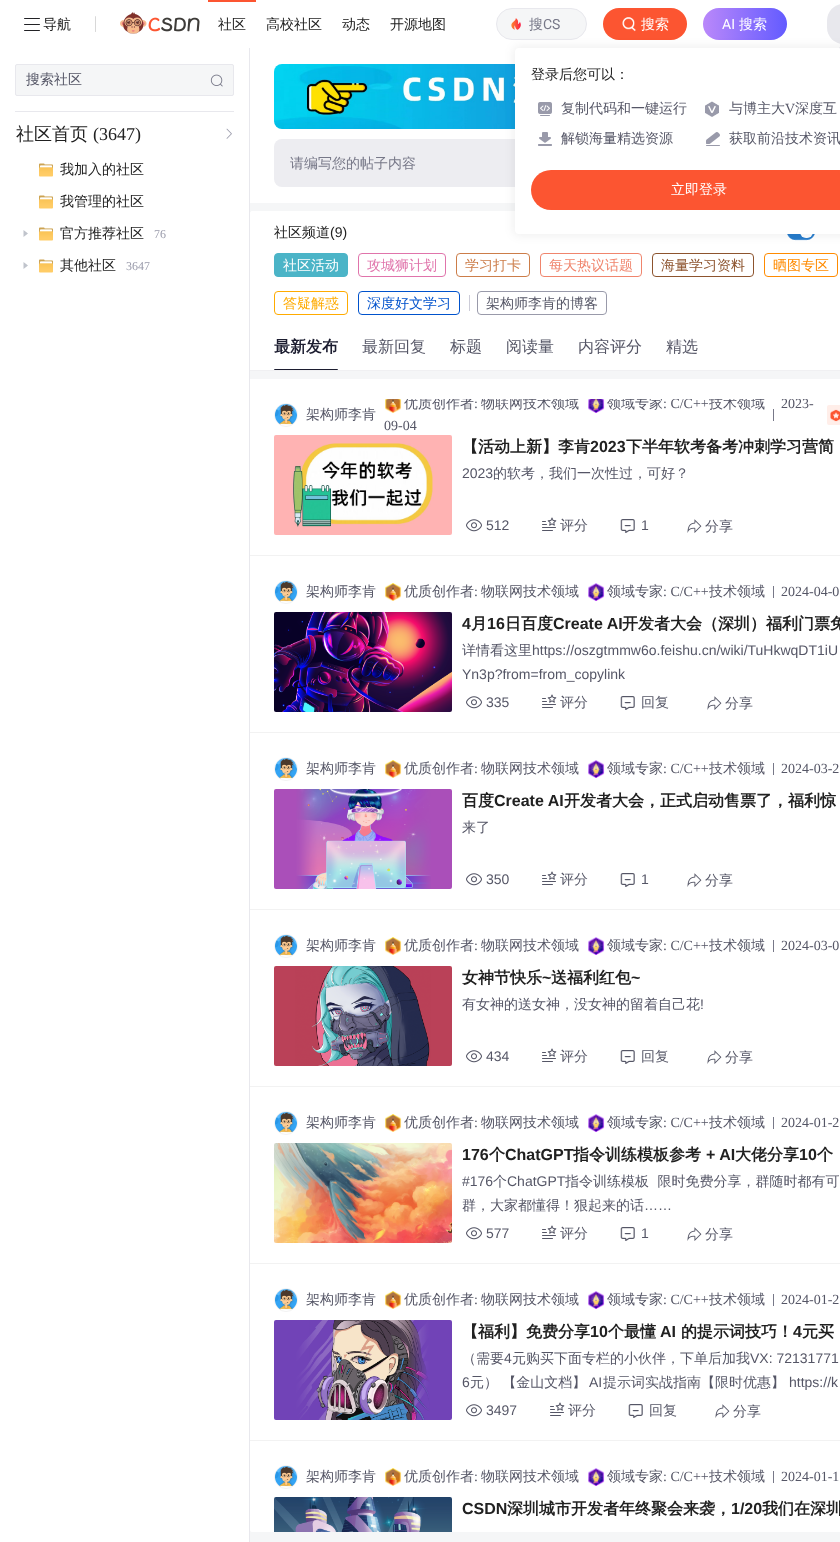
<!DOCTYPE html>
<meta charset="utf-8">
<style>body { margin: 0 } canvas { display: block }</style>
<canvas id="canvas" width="840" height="1542"></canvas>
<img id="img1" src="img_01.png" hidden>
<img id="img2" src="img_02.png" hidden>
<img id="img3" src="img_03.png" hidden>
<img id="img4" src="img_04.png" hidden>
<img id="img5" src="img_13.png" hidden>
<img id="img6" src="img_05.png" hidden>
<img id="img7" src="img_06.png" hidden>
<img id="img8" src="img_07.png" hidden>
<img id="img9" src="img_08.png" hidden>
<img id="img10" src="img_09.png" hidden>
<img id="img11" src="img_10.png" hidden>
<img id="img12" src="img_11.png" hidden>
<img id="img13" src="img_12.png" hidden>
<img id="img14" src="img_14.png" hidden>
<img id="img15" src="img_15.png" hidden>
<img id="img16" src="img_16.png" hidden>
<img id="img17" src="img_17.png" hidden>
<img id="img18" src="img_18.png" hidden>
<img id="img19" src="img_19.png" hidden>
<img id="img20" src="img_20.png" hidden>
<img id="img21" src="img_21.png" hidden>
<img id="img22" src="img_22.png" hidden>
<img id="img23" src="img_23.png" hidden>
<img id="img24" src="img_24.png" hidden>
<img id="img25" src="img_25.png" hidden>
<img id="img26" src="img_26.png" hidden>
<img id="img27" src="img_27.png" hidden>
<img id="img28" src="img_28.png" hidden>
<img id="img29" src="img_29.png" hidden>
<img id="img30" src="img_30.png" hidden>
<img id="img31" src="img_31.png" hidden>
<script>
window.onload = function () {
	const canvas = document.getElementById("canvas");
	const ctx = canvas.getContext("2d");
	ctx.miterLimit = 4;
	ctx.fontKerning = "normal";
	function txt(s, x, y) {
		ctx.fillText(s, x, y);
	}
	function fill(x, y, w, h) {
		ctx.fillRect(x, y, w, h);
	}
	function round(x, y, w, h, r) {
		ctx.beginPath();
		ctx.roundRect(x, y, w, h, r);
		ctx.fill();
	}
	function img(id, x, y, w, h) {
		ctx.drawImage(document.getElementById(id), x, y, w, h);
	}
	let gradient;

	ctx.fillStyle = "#FFFFFF";
	fill(0, 0, 840, 1542);
	img("img1", 24, 18, 16, 13);
	ctx.fillStyle = "#D8D8D8";
	round(95, 16, 1, 16, 0.5);
	img("img2", 120, 12, 80, 22);
	ctx.fillStyle = "#FC5531";
	fill(208, 0, 48, 2);
	ctx.fillStyle = "#F5F6F7";
	ctx.beginPath();
	ctx.roundRect(496.5, 8.5, 90, 31, 15.5);
	ctx.fill();
	ctx.strokeStyle = "#E8E8ED";
	ctx.stroke();
	img("img3", 511, 18, 10, 12);
	ctx.fillStyle = "#FC5531";
	round(603, 8, 84, 32, 16);
	img("img4", 622, 17, 14, 15);
	gradient = ctx.createLinearGradient(703, 24, 787, 24);
	gradient.addColorStop(0, "#BA88FA");
	gradient.addColorStop(1, "#635BFF");
	ctx.fillStyle = gradient;
	round(703, 8, 84, 32, 16);
	ctx.fillStyle = "#E8E8ED";
	round(827, 4, 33, 40, 20);
	ctx.fillStyle = "#F5F6F7";
	fill(250, 203, 590, 1339);
	img("img5", 274, 64, 241, 65);
	ctx.fillStyle = "#EDEDF1";
	round(274, 139, 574, 48, 8);
	ctx.fillStyle = "#FFFFFF";
	ctx.beginPath();
	ctx.moveTo(252, 211);
	ctx.lineTo(840, 211);
	ctx.bezierCurveTo(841, 211, 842, 212, 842, 213);
	ctx.lineTo(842, 323);
	ctx.lineTo(250, 323);
	ctx.lineTo(250, 213);
	ctx.bezierCurveTo(250, 212, 251, 211, 252, 211);
	ctx.closePath();
	ctx.fill();
	ctx.fillStyle = "#277CCC";
	ctx.beginPath();
	ctx.roundRect(787.4, 224.4, 27.2, 15.2, 7.6);
	ctx.fill();
	ctx.strokeStyle = "#277CCC";
	ctx.lineWidth = 0.8;
	ctx.stroke();
	ctx.fillStyle = "#FFFFFF";
	round(800, 226, 13, 12, 6);
	ctx.fillStyle = "rgba(0, 0, 0, 0.06)";
	ctx.filter = "blur(5px)";
	ctx.beginPath();
	ctx.roundRect(513, 46, 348, 190, 6);
	ctx.fill();
	ctx.filter = "none";
	ctx.fillStyle = "#FFFFFF";
	round(515, 48, 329, 186, 4);
	img("img6", 839, 47, 1, 2);
	img("img7", 538, 102, 14, 14);
	img("img8", 705, 101, 14, 16);
	img("img9", 538, 132, 14, 14);
	img("img10", 706, 132, 14, 14);
	ctx.fillStyle = "#FC5531";
	round(531, 170, 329, 40, 20);
	ctx.fillStyle = "#E8E8ED";
	fill(249, 48, 1, 1494);
	ctx.fillStyle = "#F5F6F7";
	ctx.beginPath();
	ctx.roundRect(15.5, 64.5, 218, 31, 1.5);
	ctx.fill();
	ctx.strokeStyle = "#E8E8ED";
	ctx.lineWidth = 1;
	ctx.stroke();
	img("img11", 210, 74, 13, 13);
	ctx.fillStyle = "#E8E8ED";
	fill(15, 111, 219, 1);
	img("img12", 226, 128, 6, 11);
	img("img13", 39, 163, 14, 14);
	img("img13", 39, 195, 14, 14);
	ctx.fillStyle = "#C0C4CC";
	ctx.beginPath();
	ctx.moveTo(23.5, 230);
	ctx.lineTo(23.5, 237);
	ctx.lineTo(28, 233.5);
	ctx.closePath();
	ctx.moveTo(23.5, 262);
	ctx.lineTo(23.5, 269);
	ctx.lineTo(28, 265.5);
	ctx.closePath();
	ctx.fill();
	img("img13", 39, 227, 14, 14);
	img("img13", 39, 259, 14, 14);
	ctx.fillStyle = "#4BB4C7";
	ctx.beginPath();
	ctx.roundRect(274.5, 253.5, 73, 23, 3.5);
	ctx.fill();
	ctx.strokeStyle = "#4BB4C7";
	ctx.stroke();
	ctx.beginPath();
	ctx.roundRect(358.5, 253.5, 87, 23, 3.5);
	ctx.strokeStyle = "#E074AB";
	ctx.stroke();
	ctx.beginPath();
	ctx.roundRect(456.5, 253.5, 73, 23, 3.5);
	ctx.strokeStyle = "#CC7D49";
	ctx.stroke();
	ctx.beginPath();
	ctx.roundRect(540.5, 253.5, 101, 23, 3.5);
	ctx.strokeStyle = "#F0856D";
	ctx.stroke();
	ctx.beginPath();
	ctx.roundRect(652.5, 253.5, 101, 23, 3.5);
	ctx.strokeStyle = "#8D542E";
	ctx.stroke();
	ctx.beginPath();
	ctx.roundRect(764.5, 253.5, 73, 23, 3.5);
	ctx.strokeStyle = "#FF8B00";
	ctx.stroke();
	ctx.beginPath();
	ctx.roundRect(274.5, 291.5, 73, 23, 3.5);
	ctx.strokeStyle = "#FFAB00";
	ctx.stroke();
	ctx.beginPath();
	ctx.roundRect(358.5, 291.5, 101, 23, 3.5);
	ctx.strokeStyle = "#0052CC";
	ctx.stroke();
	ctx.beginPath();
	ctx.roundRect(477.5, 291.5, 129, 23, 3.5);
	ctx.strokeStyle = "#999AAA";
	ctx.stroke();
	ctx.fillStyle = "#CCCCD8";
	fill(469, 295, 1, 16);
	ctx.fillStyle = "#FFFFFF";
	fill(250, 323, 590, 47);
	ctx.fillStyle = "#F0F0F2";
	fill(250, 370, 590, 1);
	ctx.fillStyle = "#1C1D30";
	ctx.beginPath();
	ctx.roundRect(274, 369, 64, 1, [1, 1, 0, 0]);
	ctx.fill();
	ctx.fillStyle = "#FFFFFF";
	ctx.beginPath();
	ctx.moveTo(250, 379);
	ctx.lineTo(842, 379);
	ctx.lineTo(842, 1530);
	ctx.bezierCurveTo(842, 1531, 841, 1532, 840, 1532);
	ctx.lineTo(252, 1532);
	ctx.bezierCurveTo(251, 1532, 250, 1531, 250, 1530);
	ctx.closePath();
	ctx.fill();
	ctx.fillStyle = "#F2F2F2";
	fill(250, 555, 590, 1);
	ctx.beginPath();
	ctx.arc(286, 415, 11.5, 0, Math.PI * 2);
	ctx.strokeStyle = "#F2F2F2";
	ctx.stroke();
	img("img14", 275, 404, 22, 21);
	ctx.fillStyle = "#777888";
	fill(773, 409, 1, 12);
	img("img15", 385, 399, 17, 14);
	img("img16", 588, 399, 17, 14);
	ctx.fillStyle = "#FFEEE9";
	round(827, 405, 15, 20, 2);
	img("img17", 830, 409, 10, 13);
	img("img18", 274, 435, 178, 100);
	img("img19", 466, 519, 16, 13);
	img("img20", 542, 517, 15, 14);
	img("img21", 620, 519, 15, 14);
	img("img22", 687, 519, 15, 14);
	ctx.fillStyle = "#F2F2F2";
	fill(250, 732, 590, 1);
	ctx.beginPath();
	ctx.arc(286, 592, 11.5, 0, Math.PI * 2);
	ctx.stroke();
	img("img14", 275, 581, 22, 21);
	img("img23", 385, 583, 17, 18);
	img("img24", 588, 583, 17, 18);
	ctx.fillStyle = "#777888";
	fill(773, 586, 1, 12);
	img("img25", 274, 612, 178, 100);
	img("img19", 466, 696, 16, 13);
	img("img20", 542, 694, 15, 14);
	img("img21", 620, 696, 15, 14);
	img("img22", 707, 696, 15, 14);
	ctx.fillStyle = "#F2F2F2";
	fill(250, 909, 590, 1);
	ctx.beginPath();
	ctx.arc(286, 769, 11.5, 0, Math.PI * 2);
	ctx.stroke();
	img("img26", 275, 758, 22, 21);
	img("img23", 385, 760, 17, 18);
	img("img24", 588, 760, 17, 18);
	ctx.fillStyle = "#777888";
	fill(773, 763, 1, 12);
	img("img27", 274, 789, 178, 100);
	img("img19", 466, 873, 16, 13);
	img("img20", 542, 871, 15, 14);
	img("img21", 620, 873, 15, 14);
	img("img22", 687, 873, 15, 14);
	ctx.fillStyle = "#F2F2F2";
	fill(250, 1086, 590, 1);
	ctx.beginPath();
	ctx.arc(286, 946, 11.5, 0, Math.PI * 2);
	ctx.stroke();
	img("img14", 275, 935, 22, 21);
	img("img23", 385, 937, 17, 18);
	img("img24", 588, 937, 17, 18);
	ctx.fillStyle = "#777888";
	fill(773, 940, 1, 12);
	img("img28", 274, 966, 178, 100);
	img("img19", 466, 1050, 16, 13);
	img("img20", 542, 1048, 15, 14);
	img("img21", 620, 1050, 15, 14);
	img("img22", 707, 1050, 15, 14);
	ctx.fillStyle = "#F2F2F2";
	fill(250, 1263, 590, 1);
	ctx.beginPath();
	ctx.arc(286, 1123, 11.5, 0, Math.PI * 2);
	ctx.stroke();
	img("img14", 275, 1112, 22, 21);
	img("img23", 385, 1114, 17, 18);
	img("img24", 588, 1114, 17, 18);
	ctx.fillStyle = "#777888";
	fill(773, 1117, 1, 12);
	img("img29", 274, 1143, 178, 100);
	img("img19", 466, 1227, 16, 13);
	img("img20", 542, 1225, 15, 14);
	img("img21", 620, 1227, 15, 14);
	img("img22", 687, 1227, 15, 14);
	ctx.fillStyle = "#F2F2F2";
	fill(250, 1440, 590, 1);
	ctx.beginPath();
	ctx.arc(286, 1300, 11.5, 0, Math.PI * 2);
	ctx.stroke();
	img("img14", 275, 1289, 22, 21);
	img("img23", 385, 1291, 17, 18);
	img("img24", 588, 1291, 17, 18);
	ctx.fillStyle = "#777888";
	fill(773, 1294, 1, 12);
	img("img30", 274, 1320, 178, 100);
	img("img19", 466, 1404, 16, 13);
	img("img20", 550, 1402, 15, 14);
	img("img21", 628, 1404, 15, 14);
	img("img22", 715, 1404, 15, 14);
	ctx.beginPath();
	ctx.arc(286, 1477, 11.5, 0, Math.PI * 2);
	ctx.stroke();
	img("img14", 275, 1466, 22, 21);
	img("img23", 385, 1468, 17, 18);
	img("img24", 588, 1468, 17, 18);
	fill(773, 1471, 1, 12);
	img("img31", 274, 1497, 178, 35);
	ctx.font = "500 14px WenQuanYi Zen Hei";
	ctx.fillStyle = "#1A1A1A";
	txt("导航", 43, 29);
	txt("社区", 218, 29);
	txt("高校社区", 266, 29);
	txt("动态", 342, 29);
	txt("开源地图", 390, 29);
	ctx.fillStyle = "#777888";
	txt("搜", 529, 29);
	ctx.font = "14px Roboto";
	txt("CS", 543, 29);
	ctx.font = "500 14px WenQuanYi Zen Hei";
	ctx.fillStyle = "#FFFFFF";
	txt("搜索", 641, 29);
	ctx.font = "14px Roboto";
	txt("AI", 722, 29);
	ctx.font = "500 14px WenQuanYi Zen Hei";
	txt("搜索", 739, 29);
	ctx.fillStyle = "#212121";
	txt("登录后您可以：", 531, 79);
	ctx.fillStyle = "#555666";
	txt("复制代码和一键运行", 561, 113);
	txt("与博主大", 729, 113);
	ctx.font = "14px Liberation Serif";
	txt("V", 785, 113);
	ctx.font = "500 14px WenQuanYi Zen Hei";
	txt("深度互", 795, 113);
	txt("解锁海量精选资源", 561, 143);
	txt("获取前沿技术资讯", 729, 143);
	ctx.fillStyle = "#FFFFFF";
	txt("立即登录", 671, 194);
	ctx.fillStyle = "#555666";
	txt("搜索社区", 26, 84);
	ctx.font = "500 18px WenQuanYi Zen Hei";
	ctx.fillStyle = "#212121";
	txt("社区首页", 16, 140);
	ctx.font = "18px Liberation Serif";
	txt("(3647)", 93, 140);
	ctx.font = "500 14px WenQuanYi Zen Hei";
	txt("我加入的社区", 60, 174);
	txt("我管理的社区", 60, 206);
	txt("官方推荐社区", 60, 238);
	ctx.font = "12px Liberation Serif";
	ctx.fillStyle = "#999AAA";
	txt("76", 154, 238);
	ctx.font = "500 14px WenQuanYi Zen Hei";
	ctx.fillStyle = "#212121";
	txt("其他社区", 60, 270);
	ctx.font = "12px Liberation Serif";
	ctx.fillStyle = "#999AAA";
	txt("3647", 126, 270);
	ctx.font = "500 14px WenQuanYi Zen Hei";
	ctx.fillStyle = "#777888";
	txt("请编写您的帖子内容", 290, 168);
	ctx.fillStyle = "#212121";
	txt("社区频道", 274, 237);
	ctx.font = "14px Liberation Sans";
	txt("(9)", 330, 237);
	ctx.font = "500 14px WenQuanYi Zen Hei";
	ctx.fillStyle = "#FFFFFF";
	txt("社区活动", 283, 270);
	ctx.fillStyle = "#E074AB";
	txt("攻城狮计划", 367, 270);
	ctx.fillStyle = "#CC7D49";
	txt("学习打卡", 465, 270);
	ctx.fillStyle = "#F0856D";
	txt("每天热议话题", 549, 270);
	ctx.fillStyle = "#8D542E";
	txt("海量学习资料", 661, 270);
	ctx.fillStyle = "#FF8B00";
	txt("晒图专区", 773, 270);
	ctx.fillStyle = "#FFAB00";
	txt("答疑解惑", 283, 308);
	ctx.fillStyle = "#0052CC";
	txt("深度好文学习", 367, 308);
	ctx.fillStyle = "#555666";
	txt("架构师李肯的博客", 486, 308);
	ctx.font = "bold 16px WenQuanYi Zen Hei";
	ctx.fillStyle = "#1C1D30";
	txt("最新发布", 274, 352);
	ctx.font = "500 16px WenQuanYi Zen Hei";
	ctx.fillStyle = "#555666";
	txt("最新回复", 362, 352);
	txt("标题", 450, 352);
	txt("阅读量", 506, 352);
	txt("内容评分", 578, 352);
	txt("精选", 666, 352);
	ctx.font = "500 14px WenQuanYi Zen Hei";
	txt("架构师李肯", 306, 419);
	ctx.save();
	ctx.beginPath();
	ctx.rect(274, 399, 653, 32);
	ctx.clip();
	ctx.font = "14px Liberation Serif";
	txt("2023-", 781, 408);
	ctx.restore();
	ctx.font = "14px Liberation Serif";
	txt("09-04", 384, 430);
	ctx.save();
	ctx.beginPath();
	ctx.rect(274, 399, 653, 32);
	ctx.clip();
	ctx.font = "500 14px WenQuanYi Zen Hei";
	txt("优质创作者", 404, 408);
	ctx.restore();
	txt(":", 474, 408);
	ctx.save();
	ctx.beginPath();
	ctx.rect(274, 399, 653, 32);
	ctx.clip();
	ctx.font = "500 14px WenQuanYi Zen Hei";
	txt("物联网技术领域", 481, 408);
	txt("领域专家", 607, 408);
	ctx.font = "14px Liberation Serif";
	txt(": C/C++", 663, 408);
	ctx.font = "500 14px WenQuanYi Zen Hei";
	txt("技术领域", 709, 408);
	ctx.restore();
	ctx.font = "bold 16px WenQuanYi Zen Hei";
	ctx.fillStyle = "#212121";
	txt("【活动上新】李肯", 462, 452);
	ctx.font = "bold 16px Liberation Sans";
	txt("2023", 590, 452);
	ctx.font = "bold 16px WenQuanYi Zen Hei";
	txt("下半年软考备考冲刺学习营简", 626, 452);
	ctx.font = "14px Liberation Sans";
	ctx.fillStyle = "#555666";
	txt("2023", 462, 478);
	ctx.font = "500 14px WenQuanYi Zen Hei";
	txt("的软考，我们一次性过，可好？", 493, 478);
	ctx.font = "14px Liberation Sans";
	txt("512", 486, 530);
	ctx.font = "500 14px WenQuanYi Zen Hei";
	txt("评分", 560, 530);
	ctx.font = "14px Liberation Sans";
	txt("1", 641, 530);
	ctx.font = "500 14px WenQuanYi Zen Hei";
	txt("分享", 705, 531);
	txt("架构师李肯", 306, 596);
	txt("优质创作者", 404, 596);
	ctx.font = "14px Liberation Serif";
	txt(":", 474, 596);
	ctx.font = "500 14px WenQuanYi Zen Hei";
	txt("物联网技术领域", 481, 596);
	txt("领域专家", 607, 596);
	ctx.font = "14px Liberation Serif";
	txt(": C/C++", 663, 596);
	ctx.font = "500 14px WenQuanYi Zen Hei";
	txt("技术领域", 709, 596);
	ctx.font = "14px Liberation Serif";
	txt("2024-04-0", 781, 596);
	ctx.font = "bold 16px Liberation Sans";
	ctx.fillStyle = "#212121";
	txt("4", 462, 629);
	ctx.font = "bold 16px WenQuanYi Zen Hei";
	txt("月", 471, 629);
	ctx.font = "bold 16px Liberation Sans";
	txt("16", 487, 629);
	ctx.font = "bold 16px WenQuanYi Zen Hei";
	txt("日百度", 505, 629);
	ctx.font = "bold 16px Liberation Sans";
	txt("Create AI", 553, 629);
	ctx.font = "bold 16px WenQuanYi Zen Hei";
	txt("开发者大会（深圳）福利门票免", 622, 629);
	ctx.font = "500 14px WenQuanYi Zen Hei";
	ctx.fillStyle = "#555666";
	txt("详情看这里", 462, 655);
	ctx.font = "14px Liberation Sans";
	txt("https://oszgtmmw6o.feishu.cn/wiki/TuHkwqDT1iU", 532, 655);
	txt("Yn3p?from=from_copylink", 462, 679);
	txt("335", 486, 707);
	ctx.font = "500 14px WenQuanYi Zen Hei";
	txt("评分", 560, 707);
	txt("回复", 641, 707);
	txt("分享", 725, 708);
	txt("架构师李肯", 306, 773);
	txt("优质创作者", 404, 773);
	ctx.font = "14px Liberation Serif";
	txt(":", 474, 773);
	ctx.font = "500 14px WenQuanYi Zen Hei";
	txt("物联网技术领域", 481, 773);
	txt("领域专家", 607, 773);
	ctx.font = "14px Liberation Serif";
	txt(": C/C++", 663, 773);
	ctx.font = "500 14px WenQuanYi Zen Hei";
	txt("技术领域", 709, 773);
	ctx.font = "14px Liberation Serif";
	txt("2024-03-2", 781, 773);
	ctx.font = "bold 16px WenQuanYi Zen Hei";
	ctx.fillStyle = "#212121";
	txt("百度", 462, 806);
	ctx.font = "bold 16px Liberation Sans";
	txt("Create AI", 494, 806);
	ctx.font = "bold 16px WenQuanYi Zen Hei";
	txt("开发者大会，正式启动售票了，福利惊", 564, 806);
	ctx.font = "500 14px WenQuanYi Zen Hei";
	ctx.fillStyle = "#555666";
	txt("来了", 462, 832);
	ctx.font = "14px Liberation Sans";
	txt("350", 486, 884);
	ctx.font = "500 14px WenQuanYi Zen Hei";
	txt("评分", 560, 884);
	ctx.font = "14px Liberation Sans";
	txt("1", 641, 884);
	ctx.font = "500 14px WenQuanYi Zen Hei";
	txt("分享", 705, 885);
	txt("架构师李肯", 306, 950);
	txt("优质创作者", 404, 950);
	ctx.font = "14px Liberation Serif";
	txt(":", 474, 950);
	ctx.font = "500 14px WenQuanYi Zen Hei";
	txt("物联网技术领域", 481, 950);
	txt("领域专家", 607, 950);
	ctx.font = "14px Liberation Serif";
	txt(": C/C++", 663, 950);
	ctx.font = "500 14px WenQuanYi Zen Hei";
	txt("技术领域", 709, 950);
	ctx.font = "14px Liberation Serif";
	txt("2024-03-0", 781, 950);
	ctx.font = "bold 16px WenQuanYi Zen Hei";
	ctx.fillStyle = "#212121";
	txt("女神节快乐", 462, 983);
	ctx.font = "bold 16px Liberation Sans";
	txt("~", 542, 983);
	ctx.font = "bold 16px WenQuanYi Zen Hei";
	txt("送福利红包", 551, 983);
	ctx.font = "bold 16px Liberation Sans";
	txt("~", 631, 983);
	ctx.font = "500 14px WenQuanYi Zen Hei";
	ctx.fillStyle = "#555666";
	txt("有女神的送女神，没女神的留着自己花", 462, 1009);
	ctx.font = "14px Liberation Sans";
	txt("!", 700, 1009);
	txt("434", 486, 1061);
	ctx.font = "500 14px WenQuanYi Zen Hei";
	txt("评分", 560, 1061);
	txt("回复", 641, 1061);
	txt("分享", 725, 1062);
	txt("架构师李肯", 306, 1127);
	txt("优质创作者", 404, 1127);
	ctx.font = "14px Liberation Serif";
	txt(":", 474, 1127);
	ctx.font = "500 14px WenQuanYi Zen Hei";
	txt("物联网技术领域", 481, 1127);
	txt("领域专家", 607, 1127);
	ctx.font = "14px Liberation Serif";
	txt(": C/C++", 663, 1127);
	ctx.font = "500 14px WenQuanYi Zen Hei";
	txt("技术领域", 709, 1127);
	ctx.font = "14px Liberation Serif";
	txt("2024-01-2", 781, 1127);
	ctx.font = "bold 16px Liberation Sans";
	ctx.fillStyle = "#212121";
	txt("176", 462, 1160);
	ctx.font = "bold 16px WenQuanYi Zen Hei";
	txt("个", 489, 1160);
	ctx.font = "bold 16px Liberation Sans";
	txt("ChatGPT", 505, 1160);
	ctx.font = "bold 16px WenQuanYi Zen Hei";
	txt("指令训练模板参考", 573, 1160);
	ctx.font = "bold 16px Liberation Sans";
	txt("+ AI", 706, 1160);
	ctx.font = "bold 16px WenQuanYi Zen Hei";
	txt("大佬分享", 735, 1160);
	ctx.font = "bold 16px Liberation Sans";
	txt("10", 799, 1160);
	ctx.font = "bold 16px WenQuanYi Zen Hei";
	txt("个", 817, 1160);
	ctx.font = "14px Liberation Sans";
	ctx.fillStyle = "#555666";
	txt("#176", 462, 1186);
	ctx.font = "500 14px WenQuanYi Zen Hei";
	txt("个", 493, 1186);
	ctx.font = "14px Liberation Sans";
	txt("ChatGPT", 507, 1186);
	ctx.font = "500 14px WenQuanYi Zen Hei";
	txt("指令训练模板  限时免费分享，群随时都有可", 565, 1186);
	txt("群，大家都懂得！狠起来的话", 462, 1210);
	ctx.font = "14px Liberation Sans";
	txt("……", 644, 1210);
	txt("577", 486, 1238);
	ctx.font = "500 14px WenQuanYi Zen Hei";
	txt("评分", 560, 1238);
	ctx.font = "14px Liberation Sans";
	txt("1", 641, 1238);
	ctx.font = "500 14px WenQuanYi Zen Hei";
	txt("分享", 705, 1239);
	txt("架构师李肯", 306, 1304);
	txt("优质创作者", 404, 1304);
	ctx.font = "14px Liberation Serif";
	txt(":", 474, 1304);
	ctx.font = "500 14px WenQuanYi Zen Hei";
	txt("物联网技术领域", 481, 1304);
	txt("领域专家", 607, 1304);
	ctx.font = "14px Liberation Serif";
	txt(": C/C++", 663, 1304);
	ctx.font = "500 14px WenQuanYi Zen Hei";
	txt("技术领域", 709, 1304);
	ctx.font = "14px Liberation Serif";
	txt("2024-01-2", 781, 1304);
	ctx.font = "bold 16px WenQuanYi Zen Hei";
	ctx.fillStyle = "#212121";
	txt("【福利】免费分享", 462, 1337);
	ctx.font = "bold 16px Liberation Sans";
	txt("10", 590, 1337);
	ctx.font = "bold 16px WenQuanYi Zen Hei";
	txt("个最懂", 608, 1337);
	ctx.font = "bold 16px Liberation Sans";
	txt("AI", 660, 1337);
	ctx.font = "bold 16px WenQuanYi Zen Hei";
	txt("的提示词技巧！", 681, 1337);
	ctx.font = "bold 16px Liberation Sans";
	txt("4", 793, 1337);
	ctx.font = "bold 16px WenQuanYi Zen Hei";
	txt("元买", 802, 1337);
	ctx.font = "500 14px WenQuanYi Zen Hei";
	ctx.fillStyle = "#555666";
	txt("（需要", 462, 1363);
	ctx.font = "14px Liberation Sans";
	txt("4", 504, 1363);
	ctx.font = "500 14px WenQuanYi Zen Hei";
	txt("元购买下面专栏的小伙伴，下单后加我", 512, 1363);
	ctx.font = "14px Liberation Sans";
	txt("VX: 72131771", 750, 1363);
	txt("6", 462, 1387);
	ctx.font = "500 14px WenQuanYi Zen Hei";
	txt("元） 【金山文档】", 470, 1387);
	ctx.font = "14px Liberation Sans";
	txt("AI", 589, 1387);
	ctx.font = "500 14px WenQuanYi Zen Hei";
	txt("提示词实战指南【限时优惠】", 603, 1387);
	ctx.font = "14px Liberation Sans";
	txt("https://k", 789, 1387);
	txt("3497", 486, 1415);
	ctx.font = "500 14px WenQuanYi Zen Hei";
	txt("评分", 568, 1415);
	txt("回复", 649, 1415);
	txt("分享", 733, 1416);
	txt("架构师李肯", 306, 1481);
	txt("优质创作者", 404, 1481);
	ctx.font = "14px Liberation Serif";
	txt(":", 474, 1481);
	ctx.font = "500 14px WenQuanYi Zen Hei";
	txt("物联网技术领域", 481, 1481);
	txt("领域专家", 607, 1481);
	ctx.font = "14px Liberation Serif";
	txt(": C/C++", 663, 1481);
	ctx.font = "500 14px WenQuanYi Zen Hei";
	txt("技术领域", 709, 1481);
	ctx.font = "14px Liberation Serif";
	txt("2024-01-1", 781, 1481);
	ctx.font = "bold 16px Liberation Sans";
	ctx.fillStyle = "#212121";
	txt("CSDN", 462, 1514);
	ctx.font = "bold 16px WenQuanYi Zen Hei";
	txt("深圳城市开发者年终聚会来袭，", 507, 1514);
	ctx.font = "bold 16px Liberation Sans";
	txt("1/20", 731, 1514);
	ctx.font = "bold 16px WenQuanYi Zen Hei";
	txt("我们在深圳", 762, 1514);
};
</script>
